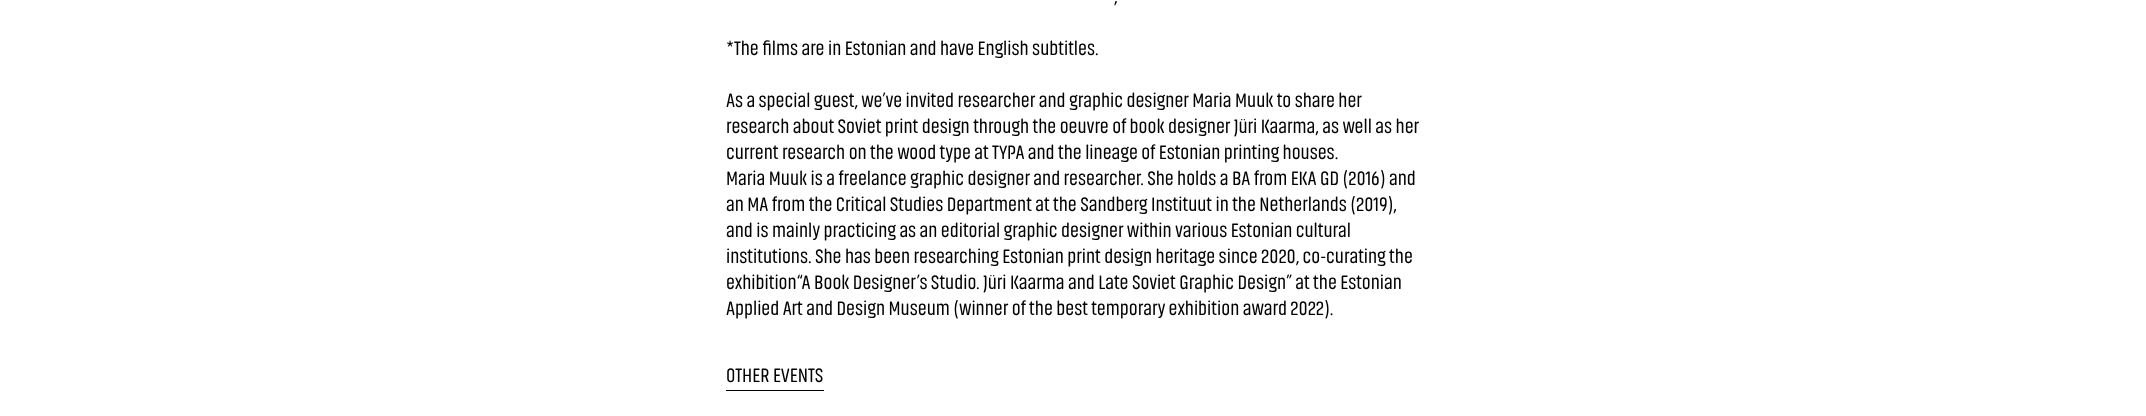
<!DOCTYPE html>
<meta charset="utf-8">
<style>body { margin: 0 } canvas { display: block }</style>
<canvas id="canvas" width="2146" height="416"></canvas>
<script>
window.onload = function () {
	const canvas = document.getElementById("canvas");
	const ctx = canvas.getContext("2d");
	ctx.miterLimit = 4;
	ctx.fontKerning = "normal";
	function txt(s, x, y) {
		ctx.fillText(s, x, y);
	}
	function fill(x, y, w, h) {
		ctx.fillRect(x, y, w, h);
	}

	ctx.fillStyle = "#FFFFFF";
	fill(0, 0, 2146, 416);
	ctx.fillStyle = "#000000";
	fill(726, 390, 98, 1);
	ctx.font = "20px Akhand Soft";
	txt(",", 1114, 3);
	txt("*The films are in Estonian and have English subtitles.", 726, 55);
	txt("As a special guest, we’ve invited researcher and graphic designer Maria Muuk to share her", 726, 107);
	txt("research about Soviet print design through the oeuvre of book designer Jüri Kaarma, as well as her", 726, 133);
	txt("current research on the wood type at TYPA and the lineage of Estonian printing houses.", 726, 159);
	txt("Maria Muuk is a freelance graphic designer and researcher. She holds a BA from EKA GD (2016) and", 726, 185);
	txt("an MA from the Critical Studies Department at the Sandberg Instituut in the Netherlands (2019),", 726, 211);
	txt("and is mainly practicing as an editorial graphic designer within various Estonian cultural", 726, 237);
	txt("institutions. She has been researching Estonian print design heritage since 2020, co-curating the", 726, 263);
	txt("exhibition“A Book Designer’s Studio. Jüri Kaarma and Late Soviet Graphic Design” at the Estonian", 726, 289);
	txt("Applied Art and Design Museum (winner of the best temporary exhibition award 2022).", 726, 315);
	txt("OTHER EVENTS", 726, 382);
};
</script>
